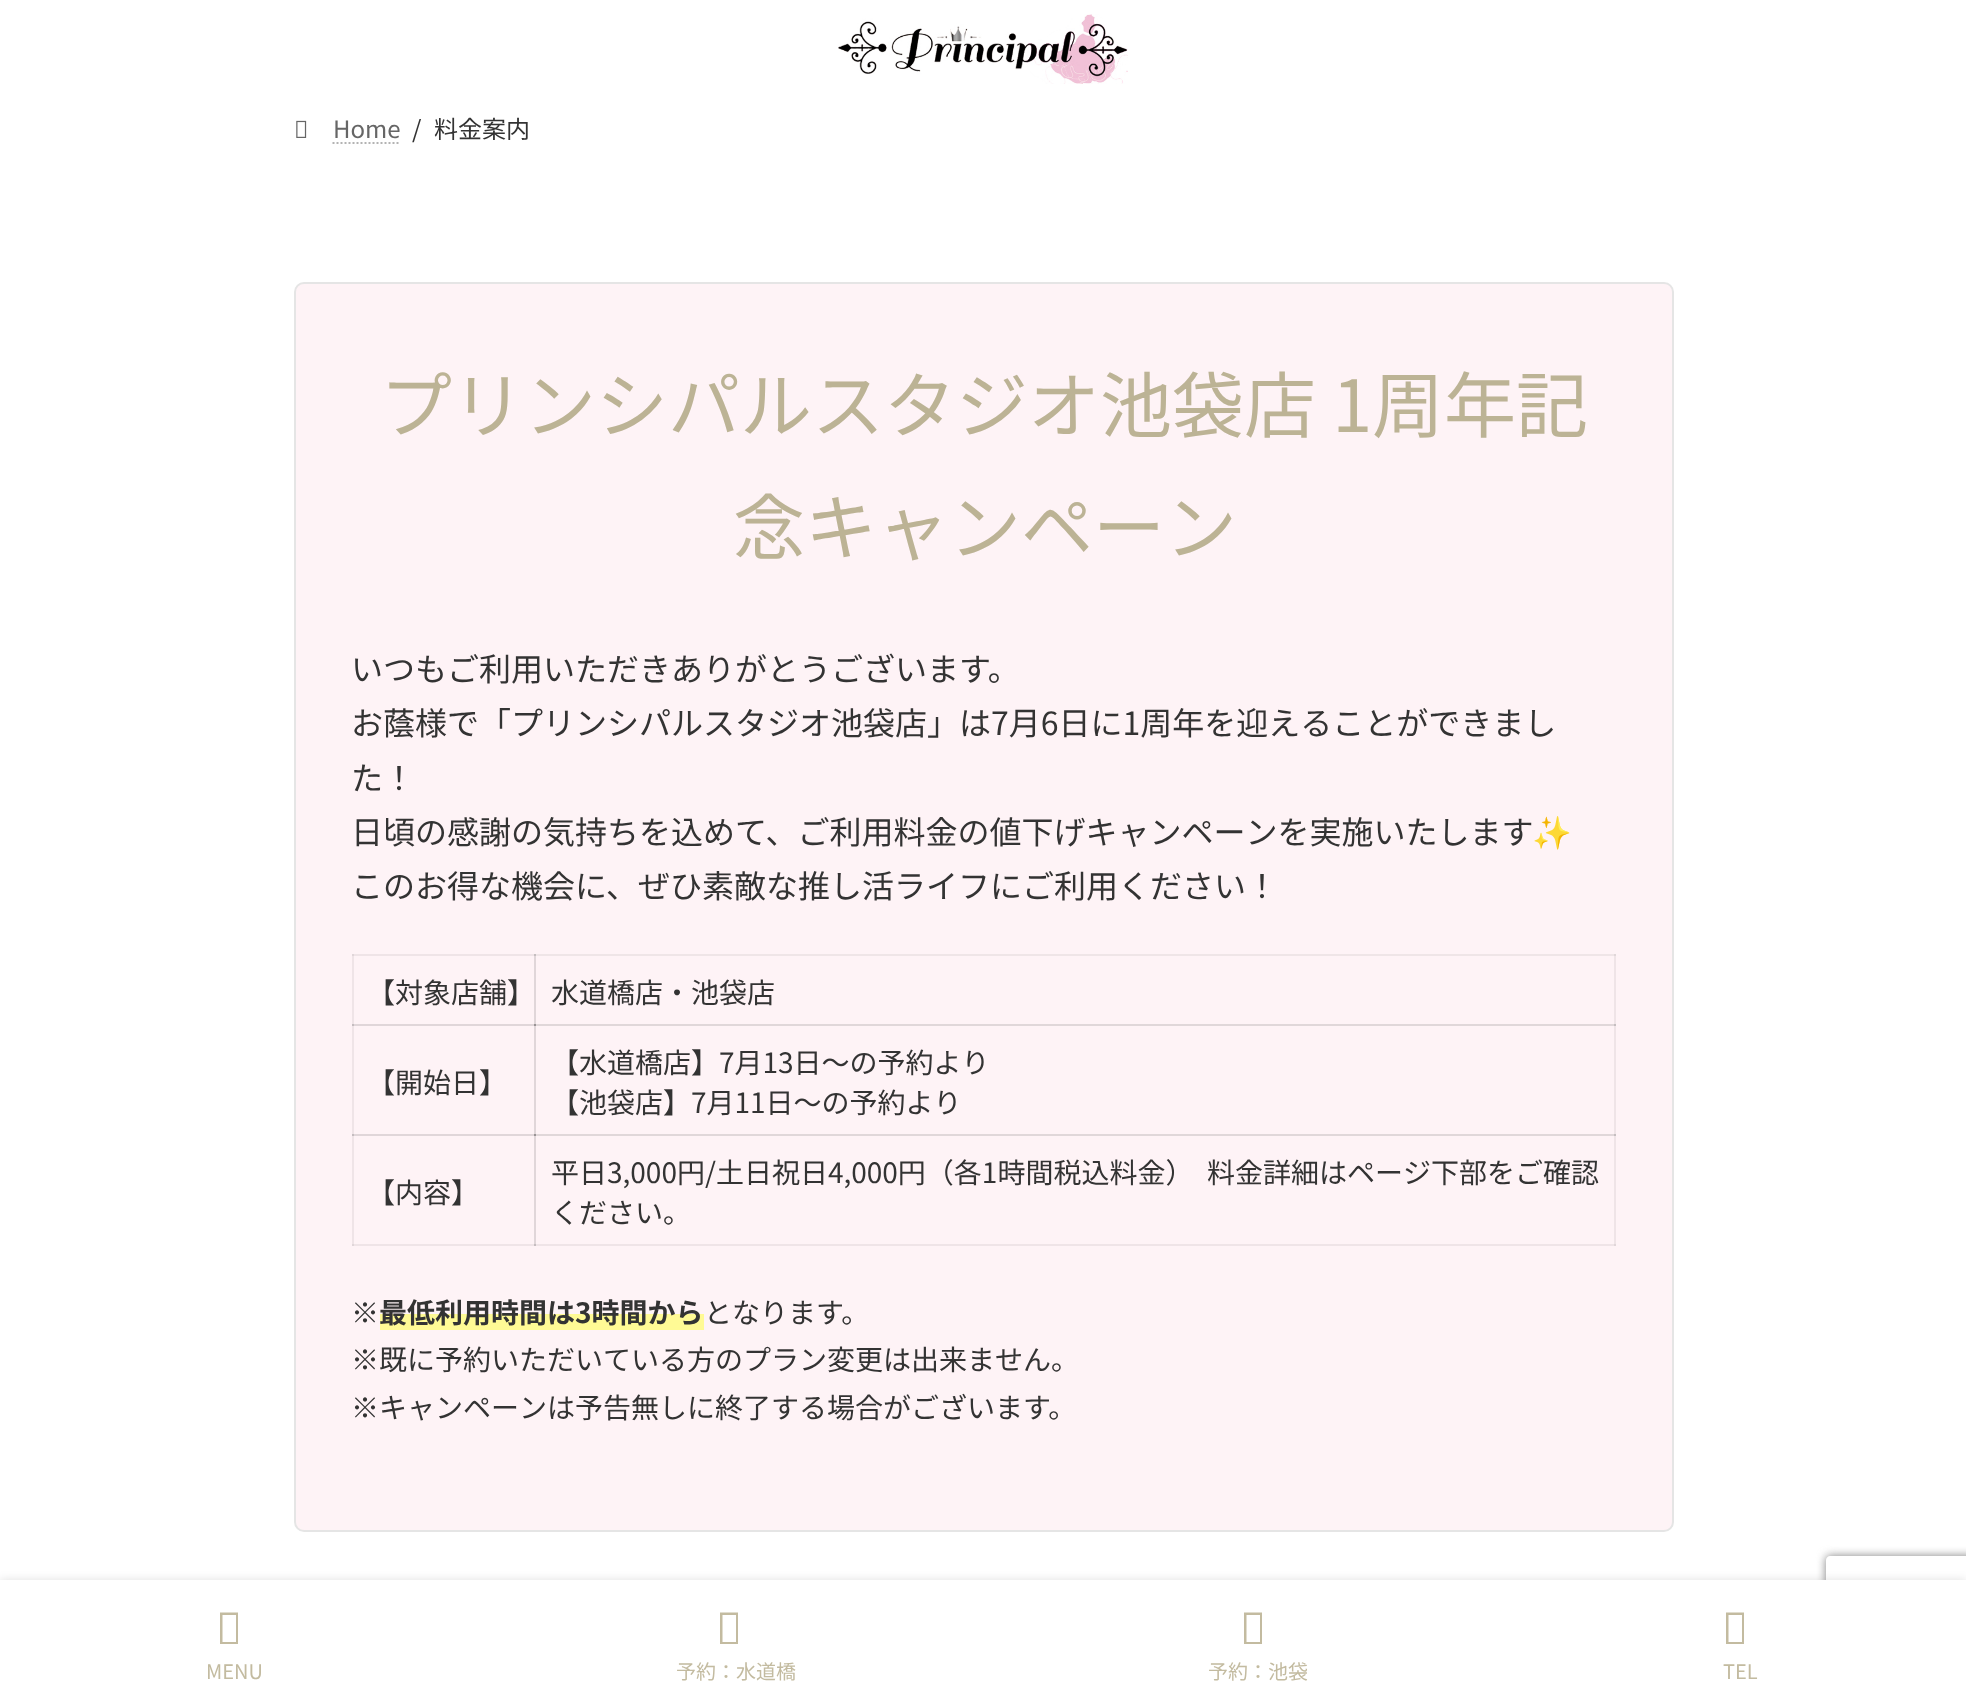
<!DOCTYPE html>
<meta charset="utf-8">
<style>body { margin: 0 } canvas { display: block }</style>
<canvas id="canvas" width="1966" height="1704"></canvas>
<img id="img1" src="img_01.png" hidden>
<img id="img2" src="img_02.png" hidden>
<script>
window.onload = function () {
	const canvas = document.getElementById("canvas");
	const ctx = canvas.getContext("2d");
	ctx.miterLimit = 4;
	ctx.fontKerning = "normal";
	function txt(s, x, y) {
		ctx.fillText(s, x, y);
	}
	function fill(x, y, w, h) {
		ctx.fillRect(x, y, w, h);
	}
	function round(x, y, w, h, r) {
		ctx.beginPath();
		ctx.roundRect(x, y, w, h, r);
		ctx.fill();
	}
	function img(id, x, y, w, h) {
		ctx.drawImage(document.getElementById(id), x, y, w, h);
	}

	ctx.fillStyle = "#FFFFFF";
	fill(0, 0, 1966, 1704);
	img("img1", 838, 14, 290, 70);
	img("img2", 296, 120, 11, 18);
	ctx.beginPath();
	ctx.moveTo(332.5, 143);
	ctx.lineTo(400, 143);
	ctx.strokeStyle = "#B3B3B3";
	ctx.lineWidth = 2;
	ctx.setLineDash([2, 2]);
	ctx.stroke();
	ctx.beginPath();
	ctx.roundRect(295, 283, 1378, 1248, 9);
	ctx.strokeStyle = "#E5E5E5";
	ctx.setLineDash([]);
	ctx.stroke();
	ctx.fillStyle = "rgba(247, 141, 167, 0.1)";
	round(296, 284, 1376, 1246, 8);
	ctx.fillStyle = "#EFE5E7";
	fill(534, 954, 1082, 2);
	fill(534, 1024, 1082, 2);
	fill(534, 1134, 1082, 2);
	ctx.fillStyle = "rgba(0, 0, 0, 0.06)";
	fill(1614, 1134, 2, 112);
	fill(1614, 1024, 2, 112);
	fill(1614, 954, 2, 72);
	fill(534, 1244, 1082, 2);
	fill(534, 1134, 2, 112);
	fill(352, 1134, 184, 2);
	fill(534, 1134, 2, 112);
	fill(534, 1134, 1082, 2);
	fill(534, 1024, 2, 112);
	fill(352, 1024, 184, 2);
	fill(534, 1024, 2, 112);
	fill(534, 1024, 1082, 2);
	fill(534, 954, 2, 72);
	fill(352, 954, 184, 2);
	fill(534, 954, 2, 72);
	fill(352, 1244, 184, 2);
	fill(352, 1134, 2, 112);
	fill(352, 1134, 184, 2);
	fill(352, 1024, 2, 112);
	fill(352, 1024, 184, 2);
	fill(352, 954, 2, 72);
	ctx.fillStyle = "#FFFA95";
	fill(380, 1314, 324, 16);
	ctx.fillStyle = "rgba(0, 0, 0, 0.12)";
	ctx.filter = "blur(5px)";
	ctx.beginPath();
	ctx.rect(0, 1580, 1966, 124);
	ctx.fill();
	ctx.filter = "none";
	ctx.save();
	ctx.beginPath();
	ctx.moveTo(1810, 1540);
	ctx.lineTo(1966, 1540);
	ctx.lineTo(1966, 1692);
	ctx.lineTo(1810, 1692);
	ctx.closePath();
	ctx.moveTo(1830, 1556);
	ctx.lineTo(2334, 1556);
	ctx.bezierCurveTo(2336, 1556, 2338, 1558, 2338, 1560);
	ctx.lineTo(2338, 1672);
	ctx.bezierCurveTo(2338, 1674, 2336, 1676, 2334, 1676);
	ctx.lineTo(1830, 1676);
	ctx.bezierCurveTo(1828, 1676, 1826, 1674, 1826, 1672);
	ctx.lineTo(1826, 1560);
	ctx.bezierCurveTo(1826, 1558, 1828, 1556, 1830, 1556);
	ctx.closePath();
	ctx.clip("evenodd");
	ctx.fillStyle = "#808080";
	ctx.filter = "blur(5px)";
	ctx.beginPath();
	ctx.roundRect(1826, 1556, 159, 120, 4);
	ctx.fill();
	ctx.filter = "none";
	ctx.restore();
	ctx.fillStyle = "#FFFFFF";
	fill(0, 1580, 1966, 124);
	ctx.fillStyle = "#C3BBA0";
	ctx.beginPath();
	ctx.moveTo(220, 1644);
	ctx.lineTo(220, 1612.5);
	ctx.lineTo(238, 1612.5);
	ctx.lineTo(238, 1644);
	ctx.closePath();
	ctx.moveTo(222.5, 1642);
	ctx.lineTo(236, 1642);
	ctx.lineTo(236, 1615);
	ctx.lineTo(222.5, 1615);
	ctx.closePath();
	ctx.fill();
	ctx.beginPath();
	ctx.moveTo(720, 1644);
	ctx.lineTo(720, 1612.5);
	ctx.lineTo(738, 1612.5);
	ctx.lineTo(738, 1644);
	ctx.closePath();
	ctx.moveTo(722.5, 1642);
	ctx.lineTo(736, 1642);
	ctx.lineTo(736, 1615);
	ctx.lineTo(722.5, 1615);
	ctx.closePath();
	ctx.fill();
	ctx.beginPath();
	ctx.moveTo(1244, 1644);
	ctx.lineTo(1244, 1612.5);
	ctx.lineTo(1262, 1612.5);
	ctx.lineTo(1262, 1644);
	ctx.closePath();
	ctx.moveTo(1246.5, 1642);
	ctx.lineTo(1260, 1642);
	ctx.lineTo(1260, 1615);
	ctx.lineTo(1246.5, 1615);
	ctx.closePath();
	ctx.fill();
	ctx.beginPath();
	ctx.moveTo(1726, 1644);
	ctx.lineTo(1726, 1612.5);
	ctx.lineTo(1744, 1612.5);
	ctx.lineTo(1744, 1644);
	ctx.closePath();
	ctx.moveTo(1728.5, 1642);
	ctx.lineTo(1742, 1642);
	ctx.lineTo(1742, 1615);
	ctx.lineTo(1728.5, 1615);
	ctx.closePath();
	ctx.fill();
	ctx.font = "24px Noto Sans JP";
	ctx.fillStyle = "#666666";
	txt("Home", 333, 138);
	ctx.fillStyle = "#333333";
	txt("/", 412, 138);
	txt("料金案内", 434, 138);
	ctx.font = "72px Noto Sans JP";
	ctx.fillStyle = "#BCB395";
	txt("プリンシパルスタジオ池袋店 1周年記", 380, 432);
	txt("念キャンペーン", 733, 554);
	ctx.font = "32px Noto Sans JP";
	ctx.fillStyle = "#333333";
	txt("いつもご利用いただきありがとうございます。", 351, 681);
	txt("お蔭様で「プリンシパルスタジオ池袋店」は7月6日に1周年を迎えることができまし", 351, 735);
	txt("た！", 351, 790);
	txt("日頃の感謝の気持ちを込めて、ご利用料金の値下げキャンペーンを実施いたします", 351, 844);
	ctx.font = "32px Noto Color Emoji";
	txt("✨", 1532, 844);
	ctx.font = "32px Noto Sans JP";
	txt("このお得な機会に、ぜひ素敵な推し活ライフにご利用ください！", 351, 898);
	ctx.font = "28px Noto Sans JP";
	txt("【対象店舗】", 367, 1003);
	txt("水道橋店・池袋店", 551, 1003);
	txt("【開始日】", 367, 1093);
	txt("【水道橋店】7月13日〜の予約より", 551, 1073);
	txt("【池袋店】7月11日〜の予約より", 551, 1113);
	txt("【内容】", 367, 1203);
	txt("平日3,000円/土日祝日4,000円（各1時間税込料金）", 551, 1183);
	txt("料金詳細はページ下部をご確認", 1207, 1183);
	txt("ください。", 551, 1223);
	txt("※", 351, 1323);
	ctx.font = "bold 28px Noto Sans JP";
	txt("最低利用時間は3時間から", 379, 1323);
	ctx.font = "28px Noto Sans JP";
	txt("となります。", 704, 1323);
	txt("※既に予約いただいている方のプラン変更は出来ません。", 351, 1370);
	txt("※キャンペーンは予告無しに終了する場合がございます。", 351, 1418);
	ctx.font = "20px Noto Sans JP";
	ctx.fillStyle = "#C3BBA0";
	txt("MENU", 206, 1679);
	txt("予約：水道橋", 676, 1679);
	txt("予約：池袋", 1208, 1679);
	txt("TEL", 1723, 1679);
};
</script>
